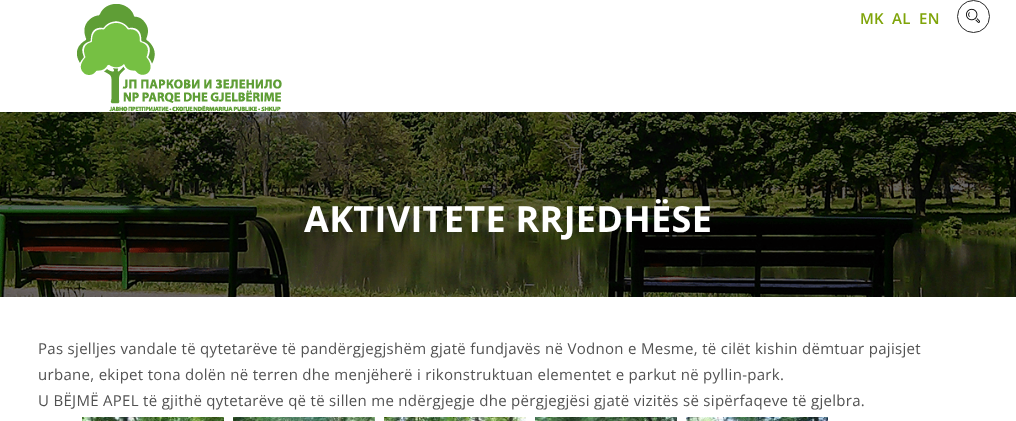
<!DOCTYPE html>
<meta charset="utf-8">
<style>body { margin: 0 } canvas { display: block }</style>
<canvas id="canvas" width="1016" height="421"></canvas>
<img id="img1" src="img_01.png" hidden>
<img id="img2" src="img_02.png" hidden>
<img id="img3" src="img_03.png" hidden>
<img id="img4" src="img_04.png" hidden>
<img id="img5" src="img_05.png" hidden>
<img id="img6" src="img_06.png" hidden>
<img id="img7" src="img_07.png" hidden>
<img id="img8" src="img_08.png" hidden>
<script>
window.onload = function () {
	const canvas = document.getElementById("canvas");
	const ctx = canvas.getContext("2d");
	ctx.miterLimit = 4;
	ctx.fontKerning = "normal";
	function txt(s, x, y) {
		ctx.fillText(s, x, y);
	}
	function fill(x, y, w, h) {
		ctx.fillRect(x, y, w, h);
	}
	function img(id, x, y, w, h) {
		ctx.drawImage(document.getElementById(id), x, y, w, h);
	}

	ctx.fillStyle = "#FFFFFF";
	fill(0, 0, 1016, 421);
	img("img1", 77, 4, 205, 108);
	ctx.beginPath();
	ctx.arc(973.5, 16.5, 16, 0, Math.PI * 2);
	ctx.strokeStyle = "#2A2A2A";
	ctx.stroke();
	img("img2", 966, 8, 14, 15);
	img("img3", 0, 112, 1016, 185);
	img("img4", 82, 417, 142, 4);
	img("img5", 233, 417, 142, 4);
	img("img6", 384, 417, 142, 4);
	img("img7", 535, 417, 142, 4);
	img("img8", 686, 417, 142, 4);
	ctx.letterSpacing = "0.3px";
	ctx.font = "600 15px Open Sans";
	ctx.fillStyle = "#7FA409";
	txt("MK", 860, 24);
	txt("AL", 892, 24);
	txt("EN", 919, 24);
	ctx.font = "bold 36px Open Sans";
	ctx.fillStyle = "#FFFFFF";
	txt("AKTIVITETE RRJEDHËSE", 304, 232);
	ctx.font = "15px Open Sans";
	ctx.fillStyle = "#525252";
	txt("Pas sjelljes vandale të qytetarëve të pandërgjegjshëm gjatë fundjavës në Vodnon e Mesme, të cilët kishin dëmtuar pajisjet", 38, 354);
	txt("urbane, ekipet tona dolën në terren dhe menjëherë i rikonstruktuan elementet e parkut në pyllin-park.", 38, 380);
	txt("U BËJMË APEL të gjithë qytetarëve që të sillen me ndërgjegje dhe përgjegjësi gjatë vizitës së sipërfaqeve të gjelbra.", 38, 406);
};
</script>
